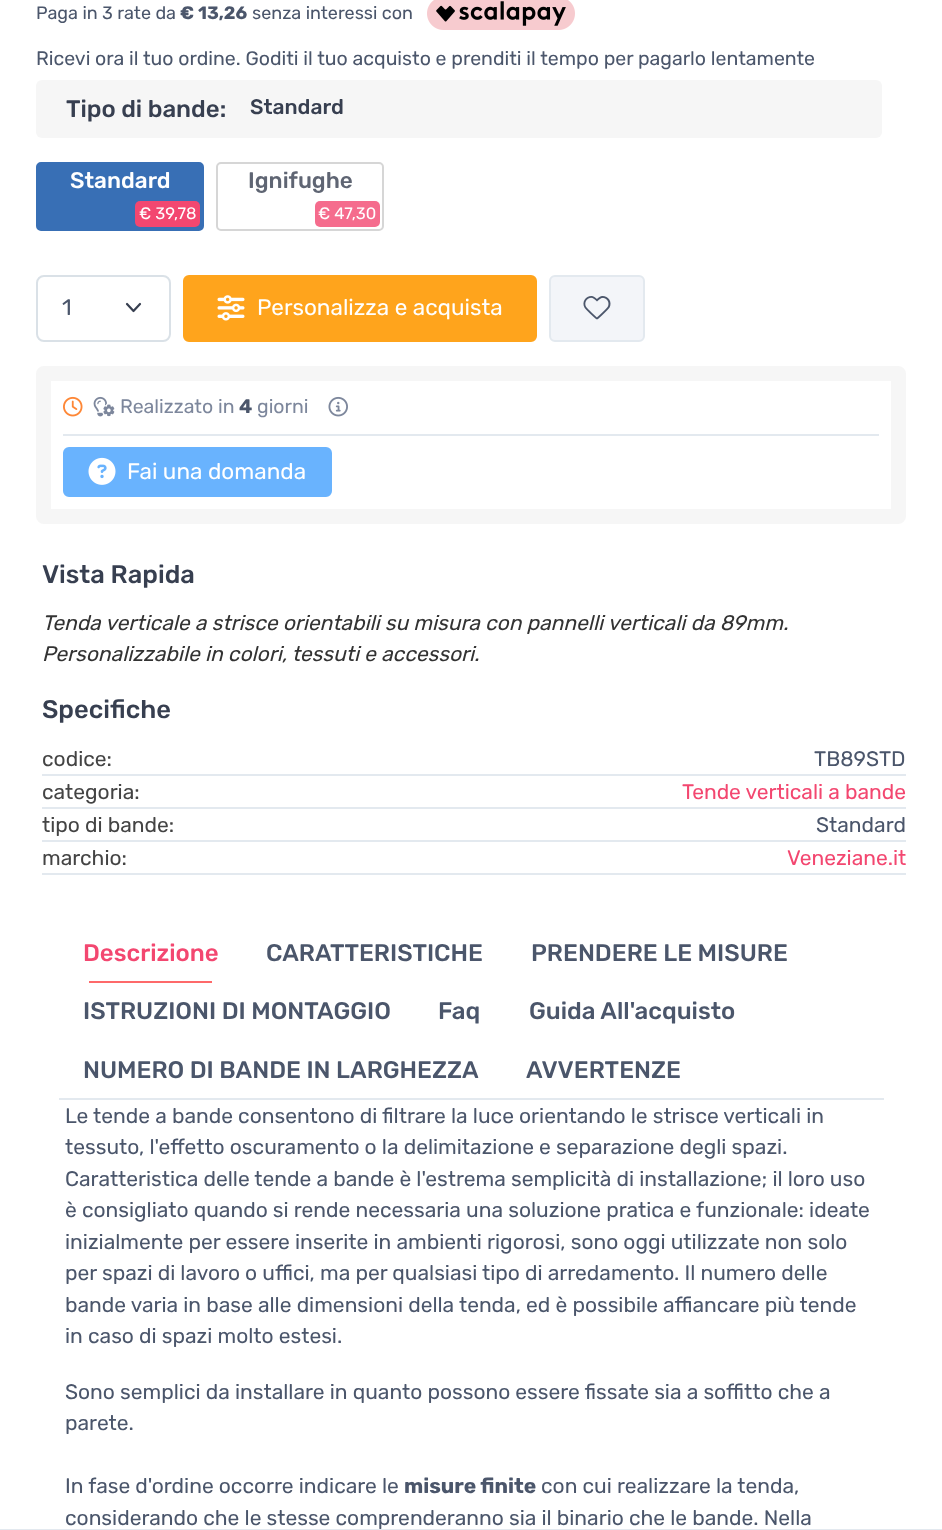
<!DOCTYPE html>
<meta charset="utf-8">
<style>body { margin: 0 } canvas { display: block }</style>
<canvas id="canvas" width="942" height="1530"></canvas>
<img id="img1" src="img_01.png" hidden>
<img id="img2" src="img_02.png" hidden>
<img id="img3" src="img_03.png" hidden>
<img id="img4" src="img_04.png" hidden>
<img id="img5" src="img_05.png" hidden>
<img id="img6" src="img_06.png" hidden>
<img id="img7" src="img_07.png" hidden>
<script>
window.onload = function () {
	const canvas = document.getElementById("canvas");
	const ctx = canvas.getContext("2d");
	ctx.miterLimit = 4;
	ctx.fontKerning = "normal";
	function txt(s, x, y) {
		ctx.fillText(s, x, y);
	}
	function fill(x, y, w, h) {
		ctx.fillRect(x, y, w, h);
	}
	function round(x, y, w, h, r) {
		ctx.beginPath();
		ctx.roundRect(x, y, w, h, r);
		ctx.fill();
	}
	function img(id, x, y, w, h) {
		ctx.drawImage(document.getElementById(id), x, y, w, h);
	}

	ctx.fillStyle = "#FFFFFF";
	fill(0, 0, 942, 1530);
	img("img1", 427, 0, 148, 30);
	ctx.fillStyle = "#F6F6F6";
	round(36, 80, 846, 58, 6);
	ctx.fillStyle = "#386FB5";
	ctx.beginPath();
	ctx.roundRect(37, 163, 166, 67, 4);
	ctx.fill();
	ctx.strokeStyle = "#386FB5";
	ctx.lineWidth = 2;
	ctx.stroke();
	ctx.fillStyle = "#F34770";
	round(135, 201, 65, 26, 5);
	ctx.beginPath();
	ctx.roundRect(217, 163, 166, 67, 4);
	ctx.strokeStyle = "#D6D6D6";
	ctx.stroke();
	ctx.fillStyle = "#F56C8D";
	round(315, 201, 65, 26, 5);
	ctx.beginPath();
	ctx.moveTo(127, 304);
	ctx.lineTo(133.5, 311);
	ctx.lineTo(140, 304);
	ctx.strokeStyle = "#373F50";
	ctx.lineWidth = 2.2;
	ctx.lineCap = "round";
	ctx.lineJoin = "round";
	ctx.stroke();
	ctx.beginPath();
	ctx.roundRect(37, 276, 133, 65, 7);
	ctx.strokeStyle = "#DAE1E7";
	ctx.lineWidth = 2;
	ctx.lineJoin = "miter";
	ctx.stroke();
	ctx.fillStyle = "#FFA41C";
	ctx.beginPath();
	ctx.roundRect(184, 276, 352, 65, 5);
	ctx.fill();
	ctx.strokeStyle = "#FFA41C";
	ctx.stroke();
	img("img2", 217, 295, 28, 26);
	ctx.fillStyle = "#F3F5F9";
	ctx.beginPath();
	ctx.roundRect(550, 276, 94, 65, 5);
	ctx.fill();
	ctx.strokeStyle = "#E3E9EF";
	ctx.stroke();
	img("img3", 583, 296, 28, 24);
	ctx.beginPath();
	ctx.roundRect(43.5, 373.5, 855, 143, 0.5);
	ctx.strokeStyle = "#F6F6F6";
	ctx.lineWidth = 15;
	ctx.stroke();
	img("img4", 63, 396, 20, 21);
	img("img5", 93, 396, 22, 21);
	img("img6", 328, 396, 20, 21);
	ctx.fillStyle = "#E3E9EF";
	fill(63, 434, 816, 2);
	ctx.fillStyle = "#69B3FE";
	ctx.beginPath();
	ctx.roundRect(64, 448, 267, 48, 5);
	ctx.fill();
	ctx.strokeStyle = "#69B3FE";
	ctx.lineWidth = 2;
	ctx.stroke();
	img("img7", 88, 457, 28, 28);
	ctx.fillStyle = "#E3E9EF";
	fill(42, 774, 864, 2);
	fill(42, 807, 864, 2);
	fill(42, 840, 864, 2);
	fill(42, 873, 864, 2);
	fill(59, 1098, 825, 2);
	ctx.fillStyle = "#FE696A";
	fill(89, 981, 123, 2);
	ctx.fillStyle = "#E3E9EF";
	fill(0, 1529, 942, 1);
	ctx.font = "18px Rubik";
	ctx.fillStyle = "#4B566B";
	txt("Paga in 3 rate da", 36, 19);
	ctx.font = "bold 18px Rubik";
	txt("€ 13,26", 180, 19);
	ctx.font = "18px Rubik";
	txt("senza interessi con", 252, 19);
	ctx.font = "19.5px Rubik";
	txt("Ricevi ora il tuo ordine. Goditi il tuo acquisto e prenditi il tempo per pagarlo lentamente", 36, 65);
	ctx.font = "500 24px Rubik";
	ctx.fillStyle = "#373F50";
	txt("Tipo di bande:", 66, 117);
	ctx.font = "500 21px Rubik";
	txt("Standard", 250, 114);
	ctx.font = "500 22.5px Rubik";
	ctx.fillStyle = "#FFFFFF";
	txt("Standard", 70, 188);
	ctx.font = "16.5px Rubik";
	txt("€ 39,78", 139, 219);
	ctx.font = "500 22.5px Rubik";
	ctx.fillStyle = "#5F6573";
	txt("Ignifughe", 248, 188);
	ctx.font = "16.5px Rubik";
	ctx.fillStyle = "#FFFFFF";
	txt("€ 47,30", 318, 219);
	ctx.font = "22.5px Rubik";
	ctx.fillStyle = "#4B566B";
	txt("1", 62, 315);
	ctx.fillStyle = "#FFFFFF";
	txt("Personalizza e acquista", 257, 315);
	ctx.font = "19.5px Rubik";
	ctx.fillStyle = "#7D879C";
	txt("Realizzato in", 120, 413);
	ctx.font = "bold 19.5px Rubik";
	ctx.fillStyle = "#4B566B";
	txt("4", 239, 413);
	ctx.font = "19.5px Rubik";
	ctx.fillStyle = "#7D879C";
	txt("giorni", 257, 413);
	ctx.font = "22.5px Rubik";
	ctx.fillStyle = "#FFFFFF";
	txt("Fai una domanda", 127, 479);
	ctx.font = "500 25.5px Rubik";
	ctx.fillStyle = "#373F50";
	txt("Vista Rapida", 42, 583);
	ctx.font = "italic 21px Rubik";
	ctx.fillStyle = "#333333";
	txt("Tenda verticale a strisce orientabili su misura con pannelli verticali da 89mm.", 42, 630);
	txt("Personalizzabile in colori, tessuti e accessori.", 42, 661);
	ctx.font = "500 25.5px Rubik";
	ctx.fillStyle = "#373F50";
	txt("Specifiche", 42, 718);
	ctx.font = "21px Rubik";
	ctx.fillStyle = "#444444";
	txt("codice:", 42, 766);
	ctx.fillStyle = "#4B566B";
	txt("TB89STD", 814, 766);
	ctx.fillStyle = "#444444";
	txt("categoria:", 42, 799);
	ctx.fillStyle = "#F34770";
	txt("Tende verticali a bande", 682, 799);
	ctx.fillStyle = "#444444";
	txt("tipo di bande:", 42, 832);
	ctx.fillStyle = "#4B566B";
	txt("Standard", 816, 832);
	ctx.fillStyle = "#444444";
	txt("marchio:", 42, 865);
	ctx.fillStyle = "#F34770";
	txt("Veneziane.it", 787, 865);
	ctx.font = "500 24px Rubik";
	txt("Descrizione", 83, 961);
	ctx.fillStyle = "#4B566B";
	txt("CARATTERISTICHE", 266, 961);
	txt("PRENDERE LE MISURE", 531, 961);
	txt("ISTRUZIONI DI MONTAGGIO", 83, 1019);
	txt("Faq", 438, 1019);
	txt("Guida All'acquisto", 529, 1019);
	txt("NUMERO DI BANDE IN LARGHEZZA", 83, 1078);
	txt("AVVERTENZE", 526, 1078);
	ctx.font = "21px Rubik";
	txt("Le tende a bande consentono di filtrare la luce orientando le strisce verticali in", 65, 1123);
	txt("tessuto, l'effetto oscuramento o la delimitazione e separazione degli spazi.", 65, 1154);
	txt("Caratteristica delle tende a bande è l'estrema semplicità di installazione; il loro uso", 65, 1186);
	txt("è consigliato quando si rende necessaria una soluzione pratica e funzionale: ideate", 65, 1217);
	txt("inizialmente per essere inserite in ambienti rigorosi, sono oggi utilizzate non solo", 65, 1249);
	txt("per spazi di lavoro o uffici, ma per qualsiasi tipo di arredamento. Il numero delle", 65, 1280);
	txt("bande varia in base alle dimensioni della tenda, ed è possibile affiancare più tende", 65, 1312);
	txt("in caso di spazi molto estesi.", 65, 1343);
	txt("Sono semplici da installare in quanto possono essere fissate sia a soffitto che a", 65, 1399);
	txt("parete.", 65, 1430);
	txt("In fase d'ordine occorre indicare le", 65, 1493);
	ctx.font = "bold 21px Rubik";
	txt("misure finite", 404, 1493);
	ctx.font = "21px Rubik";
	txt("con cui realizzare la tenda,", 541, 1493);
	txt("considerando che le stesse comprenderanno sia il binario che le bande. Nella", 65, 1525);
};
</script>
